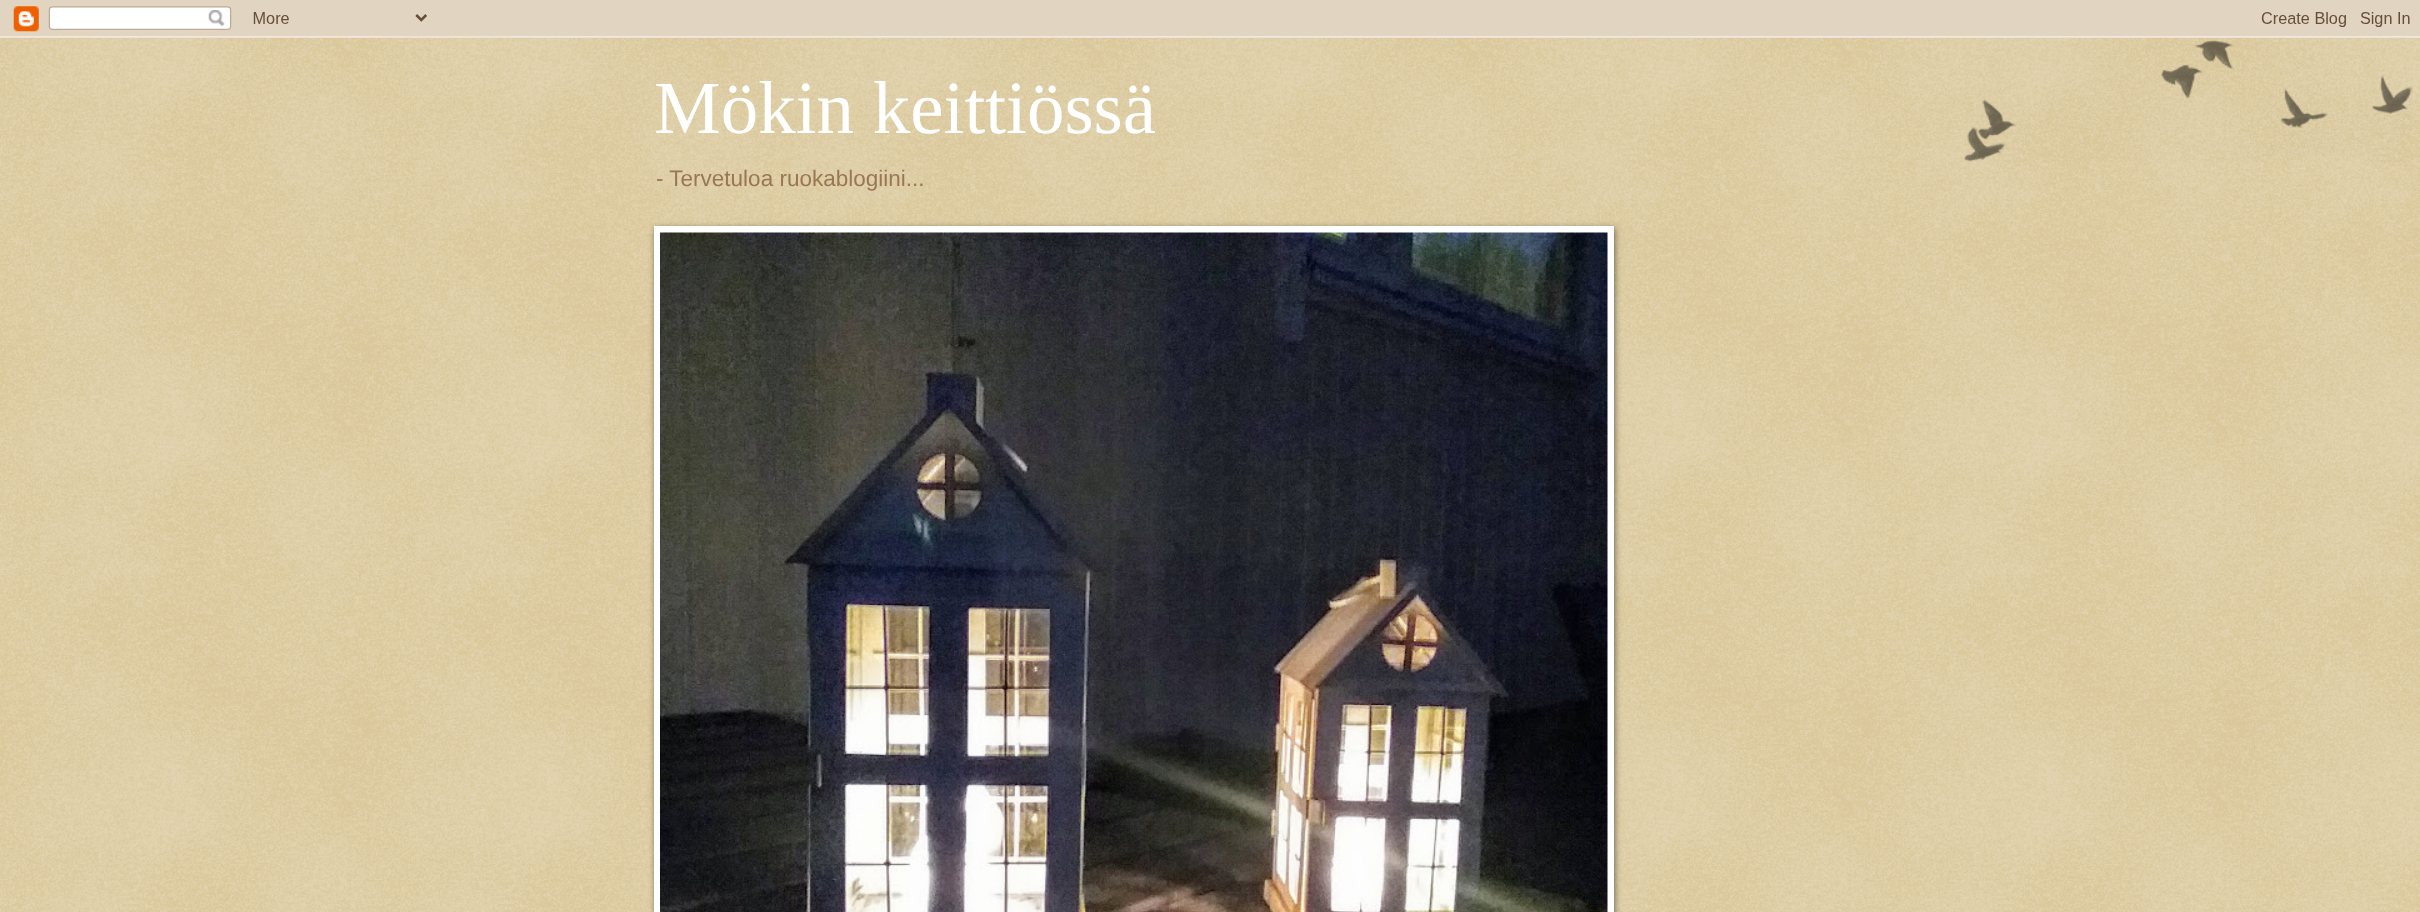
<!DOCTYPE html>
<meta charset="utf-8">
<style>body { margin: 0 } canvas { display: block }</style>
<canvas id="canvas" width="2420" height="912"></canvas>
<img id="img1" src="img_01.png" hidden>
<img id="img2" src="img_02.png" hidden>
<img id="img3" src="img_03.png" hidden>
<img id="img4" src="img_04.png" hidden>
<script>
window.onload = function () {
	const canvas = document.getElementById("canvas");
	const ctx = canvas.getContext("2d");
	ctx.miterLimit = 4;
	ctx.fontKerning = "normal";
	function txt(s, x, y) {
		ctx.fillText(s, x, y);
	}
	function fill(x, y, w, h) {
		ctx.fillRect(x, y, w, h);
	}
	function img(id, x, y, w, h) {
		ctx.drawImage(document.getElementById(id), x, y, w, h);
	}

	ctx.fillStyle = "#C0A154";
	fill(0, 0, 2420, 912);
	img("img1", 0, 36, 2420, 876);
	img("img2", 0, 0, 2420, 38);
	ctx.fillStyle = "rgba(0, 0, 0, 0.5)";
	ctx.filter = "blur(3px)";
	ctx.beginPath();
	ctx.rect(655, 228, 960, 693);
	ctx.fill();
	ctx.filter = "none";
	ctx.fillStyle = "#FFFFFF";
	fill(654, 226, 960, 686);
	img("img3", 660, 232, 948, 680);
	img("img4", 1964, 40, 449, 122);
	ctx.font = "75px Liberation Serif";
	txt("Mökin keittiössä", 654, 133);
	ctx.font = "22.5px Liberation Sans";
	ctx.fillStyle = "#997755";
	txt("- Tervetuloa ruokablogiini...", 656, 186);
};
</script>
